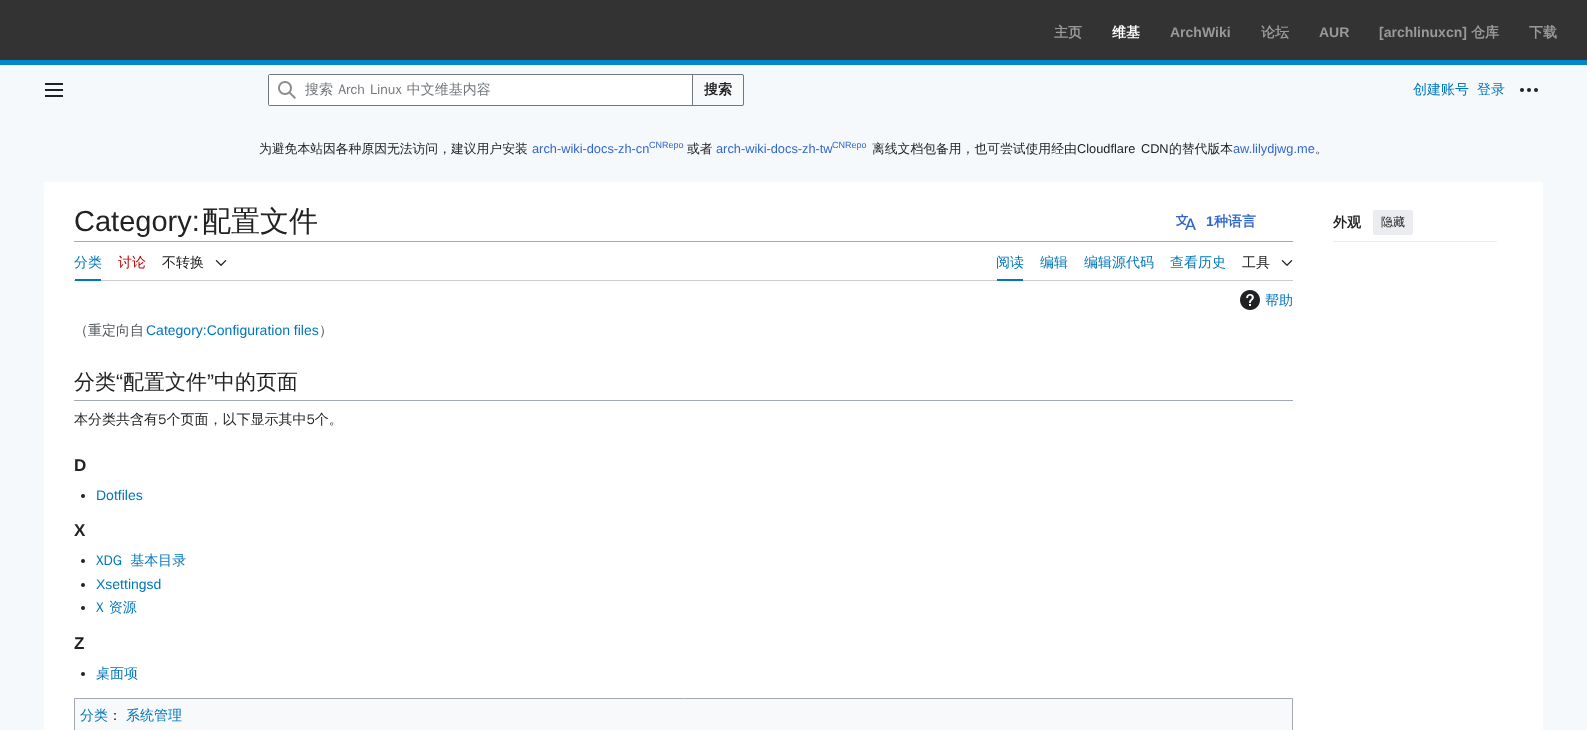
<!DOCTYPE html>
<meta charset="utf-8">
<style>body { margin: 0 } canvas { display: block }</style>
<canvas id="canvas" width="1587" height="730"></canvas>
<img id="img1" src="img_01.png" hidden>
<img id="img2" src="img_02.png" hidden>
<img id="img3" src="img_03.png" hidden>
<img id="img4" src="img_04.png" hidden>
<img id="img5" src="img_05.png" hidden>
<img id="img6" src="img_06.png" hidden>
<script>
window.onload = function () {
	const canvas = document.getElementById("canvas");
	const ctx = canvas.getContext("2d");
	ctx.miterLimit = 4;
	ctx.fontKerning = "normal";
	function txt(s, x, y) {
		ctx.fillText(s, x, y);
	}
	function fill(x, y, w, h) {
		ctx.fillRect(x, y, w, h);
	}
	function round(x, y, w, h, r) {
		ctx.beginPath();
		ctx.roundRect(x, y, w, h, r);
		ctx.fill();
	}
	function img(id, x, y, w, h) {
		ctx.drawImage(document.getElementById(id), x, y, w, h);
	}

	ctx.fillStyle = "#F6F9FC";
	fill(0, 0, 1587, 730);
	ctx.fillStyle = "#333333";
	fill(0, 0, 1587, 60);
	ctx.fillStyle = "#0088CC";
	fill(0, 60, 1587, 5);
	img("img1", 45, 83, 18, 14);
	ctx.beginPath();
	ctx.roundRect(268.5, 74.5, 475, 31, 1.5);
	ctx.strokeStyle = "#A2A9B1";
	ctx.stroke();
	ctx.fillStyle = "#F8F9FA";
	ctx.beginPath();
	ctx.roundRect(692.5, 74.5, 51, 31, [0, 1.5, 1.5, 0]);
	ctx.fill();
	ctx.strokeStyle = "#72777D";
	ctx.stroke();
	ctx.fillStyle = "#FFFFFF";
	ctx.beginPath();
	ctx.roundRect(268, 74, 425, 32, [2, 0, 0, 2]);
	ctx.fill();
	ctx.fillStyle = "#72777D";
	ctx.beginPath();
	ctx.moveTo(270, 74);
	ctx.bezierCurveTo(269, 74, 268, 75, 268, 76);
	ctx.lineTo(268, 104);
	ctx.bezierCurveTo(268, 105, 269, 106, 270, 106);
	ctx.lineTo(693, 106);
	ctx.lineTo(693, 74);
	ctx.closePath();
	ctx.moveTo(269, 75);
	ctx.lineTo(269, 105);
	ctx.lineTo(692, 105);
	ctx.lineTo(692, 75);
	ctx.closePath();
	ctx.fill("evenodd");
	img("img2", 278, 81, 18, 18);
	img("img3", 1520, 88, 18, 4);
	ctx.fillStyle = "#FFFFFF";
	fill(44, 182, 1499, 548);
	img("img4", 1176, 214, 20, 16);
	ctx.fillStyle = "#A2A9B1";
	fill(74, 241, 1219, 1);
	ctx.fillStyle = "#EAECF0";
	fill(1333, 241, 164, 1);
	round(1373, 210, 40, 25, 2);
	ctx.fillStyle = "#C8CCD1";
	fill(74, 280, 1219, 1);
	ctx.fillStyle = "#0077BB";
	fill(75, 279, 26, 2);
	img("img5", 215, 260, 12, 6);
	fill(997, 279, 26, 2);
	img("img5", 1281, 260, 12, 6);
	img("img6", 1240, 290, 20, 20);
	ctx.fillStyle = "#A2A9B1";
	fill(74, 400, 1219, 1);
	ctx.fillStyle = "#222222";
	ctx.beginPath();
	ctx.arc(83, 496, 2, 0, Math.PI * 2);
	ctx.fill();
	ctx.beginPath();
	ctx.arc(83, 561, 2, 0, Math.PI * 2);
	ctx.fill();
	ctx.beginPath();
	ctx.arc(83, 585, 2, 0, Math.PI * 2);
	ctx.fill();
	ctx.beginPath();
	ctx.arc(83, 608, 2, 0, Math.PI * 2);
	ctx.fill();
	ctx.beginPath();
	ctx.arc(83, 674, 2, 0, Math.PI * 2);
	ctx.fill();
	ctx.fillStyle = "#F8F9FA";
	ctx.beginPath();
	ctx.rect(74.5, 698.5, 1218, 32);
	ctx.fill();
	ctx.strokeStyle = "#A2A9B1";
	ctx.stroke();
	ctx.font = "bold 14px WenQuanYi Zen Hei";
	ctx.fillStyle = "#999999";
	txt("主页", 1054, 37);
	ctx.fillStyle = "#FFFFFF";
	txt("维基", 1112, 37);
	ctx.font = "bold 14px Liberation Sans";
	ctx.fillStyle = "#999999";
	txt("ArchWiki", 1170, 37);
	ctx.font = "bold 14px WenQuanYi Zen Hei";
	txt("论坛", 1261, 37);
	ctx.font = "bold 14px Liberation Sans";
	txt("AUR", 1319, 37);
	txt("[archlinuxcn]", 1379, 37);
	ctx.font = "bold 14px WenQuanYi Zen Hei";
	txt("仓库", 1471, 37);
	txt("下载", 1529, 37);
	ctx.wordSpacing = "1px";
	ctx.font = "500 14px WenQuanYi Zen Hei";
	ctx.fillStyle = "#72777D";
	txt("搜索 Arch Linux 中文维基内容", 305, 94);
	ctx.wordSpacing = "0px";
	ctx.font = "bold 14px WenQuanYi Zen Hei";
	ctx.fillStyle = "#222222";
	txt("搜索", 704, 94);
	ctx.font = "500 14px WenQuanYi Zen Hei";
	ctx.fillStyle = "#0077BB";
	txt("创建账号", 1413, 94);
	txt("登录", 1477, 94);
	ctx.font = "500 12.8px WenQuanYi Zen Hei";
	ctx.fillStyle = "#222222";
	txt("为避免本站因各种原因无法访问，建议用户安装", 259, 153);
	ctx.font = "12.8px Liberation Sans";
	ctx.fillStyle = "#3366CC";
	txt("arch-wiki-docs-zh-cn", 532, 153);
	ctx.font = "9px Liberation Sans";
	txt("CNRepo", 649, 148);
	ctx.font = "500 12.8px WenQuanYi Zen Hei";
	ctx.fillStyle = "#222222";
	txt("或者", 687, 153);
	ctx.font = "12.8px Liberation Sans";
	ctx.fillStyle = "#3366CC";
	txt("arch-wiki-docs-zh-tw", 716, 153);
	ctx.font = "9px Liberation Sans";
	txt("CNRepo", 832, 148);
	ctx.font = "500 12.8px WenQuanYi Zen Hei";
	ctx.fillStyle = "#222222";
	txt("离线文档包备用，也可尝试使用经由", 872, 153);
	ctx.wordSpacing = "2px";
	ctx.font = "12.8px Liberation Sans";
	txt("Cloudflare CDN", 1077, 153);
	ctx.wordSpacing = "0px";
	ctx.font = "500 12.8px WenQuanYi Zen Hei";
	txt("的替代版本", 1169, 153);
	ctx.font = "12.8px Liberation Sans";
	ctx.fillStyle = "#3366CC";
	txt("aw.lilydjwg.me", 1233, 153);
	ctx.font = "500 12.8px WenQuanYi Zen Hei";
	ctx.fillStyle = "#222222";
	txt("。", 1315, 153);
	ctx.font = "29px Liberation Sans";
	txt("Category:", 74, 231);
	ctx.font = "500 29px WenQuanYi Zen Hei";
	txt("配置文件", 202, 231);
	ctx.font = "bold 14px Liberation Sans";
	ctx.fillStyle = "#3366CC";
	txt("1", 1206, 226);
	ctx.font = "bold 14px WenQuanYi Zen Hei";
	txt("种语言", 1214, 226);
	ctx.fillStyle = "#222222";
	txt("外观", 1333, 227);
	ctx.font = "500 12px WenQuanYi Zen Hei";
	txt("隐藏", 1381, 226);
	ctx.font = "500 14px WenQuanYi Zen Hei";
	ctx.fillStyle = "#0077BB";
	txt("分类", 74, 267);
	ctx.fillStyle = "#BB0000";
	txt("讨论", 118, 267);
	ctx.fillStyle = "#222222";
	txt("不转换", 162, 267);
	ctx.fillStyle = "#0077BB";
	txt("阅读", 996, 267);
	txt("编辑", 1040, 267);
	txt("编辑源代码", 1084, 267);
	txt("查看历史", 1170, 267);
	ctx.fillStyle = "#222222";
	txt("工具", 1242, 267);
	ctx.fillStyle = "#0077BB";
	txt("帮助", 1265, 305);
	ctx.fillStyle = "#54595D";
	txt("（重定向自", 74, 335);
	ctx.font = "14px Liberation Sans";
	ctx.fillStyle = "#0077BB";
	txt("Category:Configuration files", 146, 335);
	ctx.font = "500 14px WenQuanYi Zen Hei";
	ctx.fillStyle = "#54595D";
	txt("）", 319, 335);
	ctx.font = "500 21px WenQuanYi Zen Hei";
	ctx.fillStyle = "#222222";
	txt("分类", 74, 389);
	ctx.font = "21px Liberation Sans";
	txt("“", 116, 389);
	ctx.font = "500 21px WenQuanYi Zen Hei";
	txt("配置文件", 123, 389);
	ctx.font = "21px Liberation Sans";
	txt("”", 207, 389);
	ctx.font = "500 21px WenQuanYi Zen Hei";
	txt("中的页面", 214, 389);
	ctx.font = "500 14px WenQuanYi Zen Hei";
	txt("本分类共含有5个页面，以下显示其中5个。", 74, 424);
	ctx.font = "bold 17px Liberation Sans";
	txt("D", 74, 471);
	ctx.font = "14px Liberation Sans";
	ctx.fillStyle = "#0077BB";
	txt("Dotfiles", 96, 500);
	ctx.font = "bold 17px Liberation Sans";
	ctx.fillStyle = "#222222";
	txt("X", 74, 536);
	ctx.wordSpacing = "4px";
	ctx.font = "500 14px WenQuanYi Zen Hei";
	ctx.fillStyle = "#0077BB";
	txt("XDG 基本目录", 96, 565);
	ctx.wordSpacing = "0px";
	ctx.font = "14px Liberation Sans";
	txt("Xsettingsd", 96, 589);
	ctx.wordSpacing = "1px";
	ctx.font = "500 14px WenQuanYi Zen Hei";
	txt("X 资源", 96, 612);
	ctx.wordSpacing = "0px";
	ctx.font = "bold 17px Liberation Sans";
	ctx.fillStyle = "#222222";
	txt("Z", 74, 649);
	ctx.font = "500 14px WenQuanYi Zen Hei";
	ctx.fillStyle = "#0077BB";
	txt("桌面项", 96, 678);
	txt("分类", 80, 720);
	ctx.fillStyle = "#222222";
	txt("：", 108, 720);
	ctx.fillStyle = "#0077BB";
	txt("系统管理", 126, 720);
};
</script>
